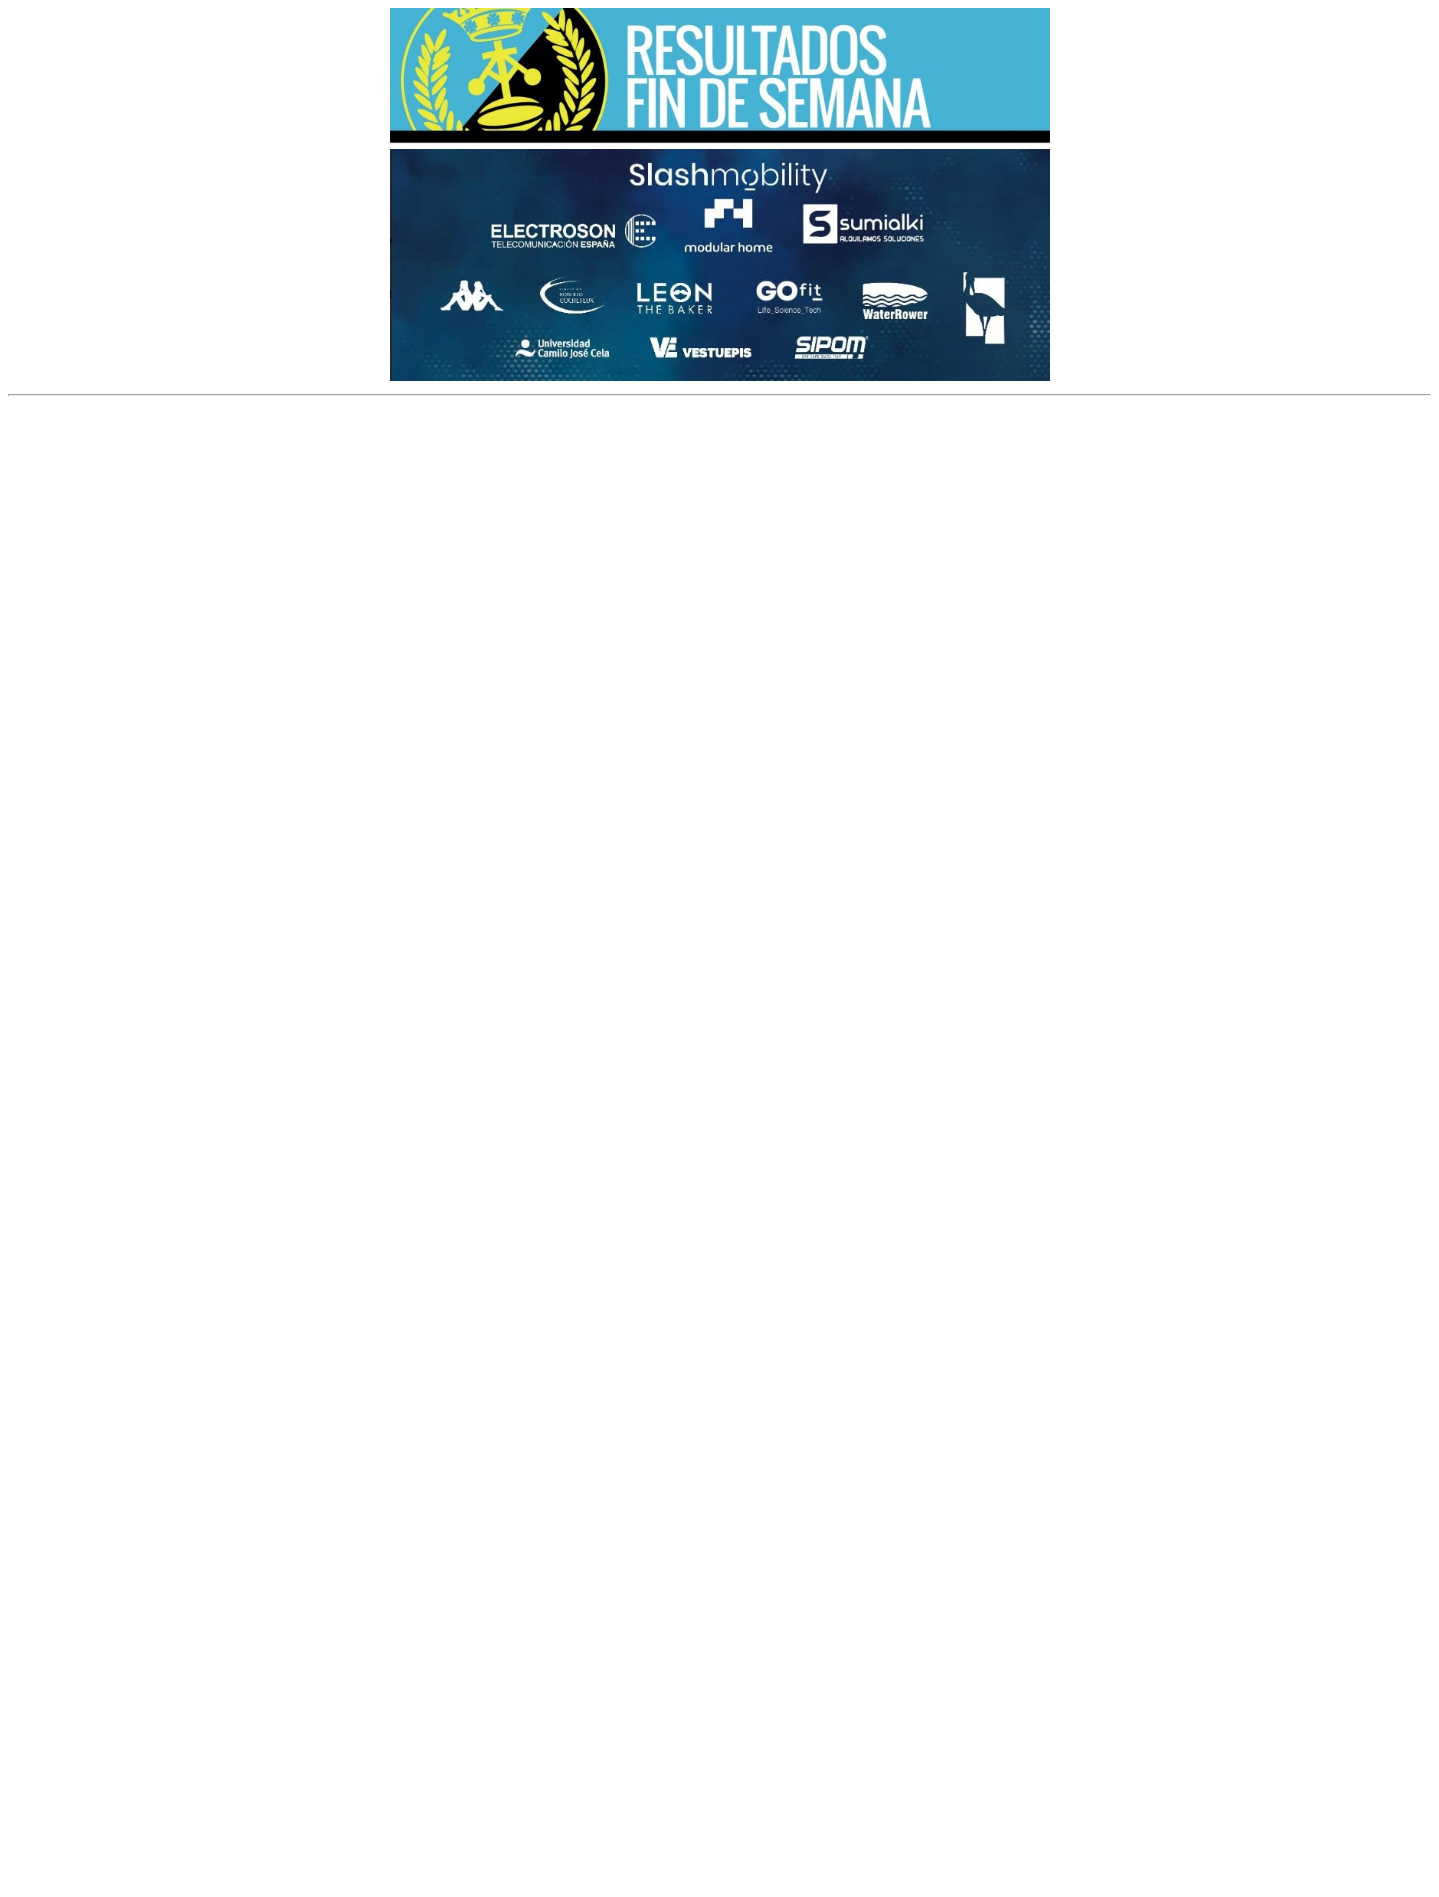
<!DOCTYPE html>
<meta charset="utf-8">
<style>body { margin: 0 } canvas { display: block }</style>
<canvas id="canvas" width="1439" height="1897"></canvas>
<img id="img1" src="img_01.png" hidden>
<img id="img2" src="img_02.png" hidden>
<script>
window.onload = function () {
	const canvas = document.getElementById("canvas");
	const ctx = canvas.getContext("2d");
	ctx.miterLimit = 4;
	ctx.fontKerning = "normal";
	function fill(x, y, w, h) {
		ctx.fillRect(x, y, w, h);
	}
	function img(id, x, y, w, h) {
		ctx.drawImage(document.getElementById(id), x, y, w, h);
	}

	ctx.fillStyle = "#FFFFFF";
	fill(0, 0, 1439, 1897);
	img("img1", 390, 8, 660, 136);
	img("img2", 390, 149, 660, 232);
	ctx.fillStyle = "#9F9F9F";
	fill(8, 394, 1423, 1);
	ctx.fillStyle = "#EEEEEE";
	fill(1430, 394, 1, 2);
	fill(8, 395, 1423, 1);
	ctx.fillStyle = "#9F9F9F";
	fill(8, 394, 1, 2);
};
</script>
